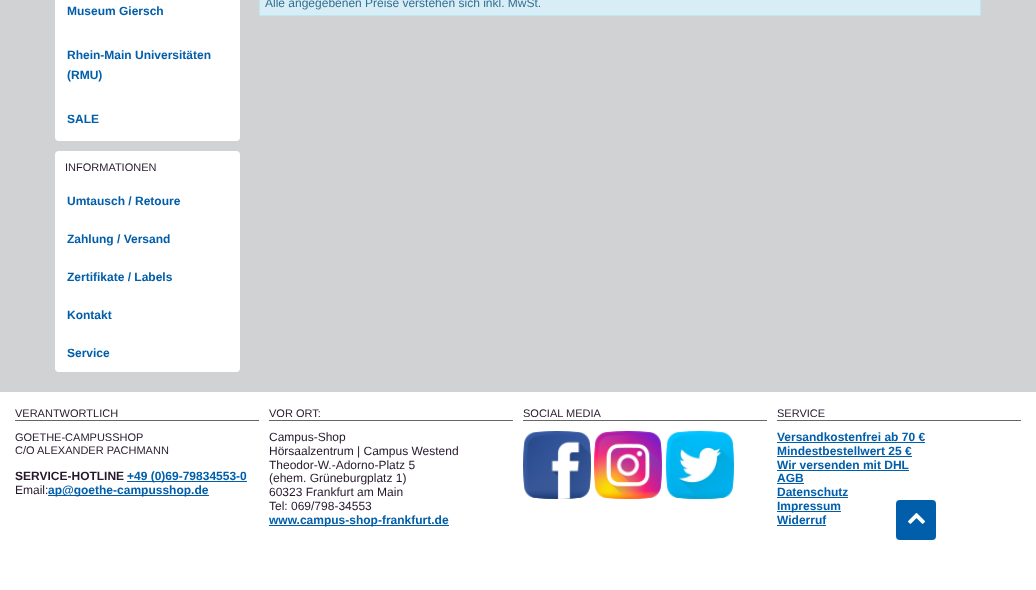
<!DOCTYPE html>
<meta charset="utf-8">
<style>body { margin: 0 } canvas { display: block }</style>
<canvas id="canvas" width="1036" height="590"></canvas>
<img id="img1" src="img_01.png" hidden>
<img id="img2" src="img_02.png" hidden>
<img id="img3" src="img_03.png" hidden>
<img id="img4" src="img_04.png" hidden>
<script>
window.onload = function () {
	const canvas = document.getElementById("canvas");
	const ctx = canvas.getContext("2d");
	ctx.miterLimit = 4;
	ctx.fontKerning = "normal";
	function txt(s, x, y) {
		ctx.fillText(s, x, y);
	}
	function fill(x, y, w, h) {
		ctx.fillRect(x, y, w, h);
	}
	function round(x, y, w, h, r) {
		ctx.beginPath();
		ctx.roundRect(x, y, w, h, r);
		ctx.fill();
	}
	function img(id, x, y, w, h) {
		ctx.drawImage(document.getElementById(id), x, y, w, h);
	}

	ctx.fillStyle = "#D1D2D3";
	fill(0, 0, 1036, 590);
	ctx.fillStyle = "#D9EDF7";
	ctx.beginPath();
	ctx.rect(259.5, -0.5, 721, 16);
	ctx.fill();
	ctx.strokeStyle = "#BCE8F1";
	ctx.stroke();
	ctx.fillStyle = "#FFFFFF";
	fill(55, 0, 185, 97);
	ctx.beginPath();
	ctx.roundRect(55, 97, 185, 44, [0, 0, 4, 4]);
	ctx.fill();
	ctx.beginPath();
	ctx.roundRect(55, 151, 185, 32, [4, 4, 0, 0]);
	ctx.fill();
	fill(55, 183, 185, 152);
	ctx.beginPath();
	ctx.roundRect(55, 335, 185, 37, [0, 0, 4, 4]);
	ctx.fill();
	fill(0, 392, 1036, 198);
	ctx.fillStyle = "#666666";
	fill(15, 420, 244, 1);
	ctx.fillStyle = "#005EAA";
	fill(127, 481, 120, 1);
	fill(48, 495, 161, 1);
	ctx.fillStyle = "#666666";
	fill(269, 420, 244, 1);
	ctx.fillStyle = "#005EAA";
	fill(269, 525, 180, 1);
	ctx.fillStyle = "#666666";
	fill(523, 420, 244, 1);
	img("img1", 523, 431, 68, 68);
	img("img2", 594, 431, 68, 68);
	img("img3", 666, 431, 68, 68);
	fill(777, 420, 244, 1);
	ctx.fillStyle = "#005EAA";
	fill(777, 442, 148, 1);
	fill(777, 456, 135, 1);
	fill(777, 470, 132, 1);
	fill(777, 483, 27, 1);
	fill(777, 497, 71, 1);
	fill(777, 511, 64, 1);
	fill(777, 525, 49, 1);
	round(896, 500, 40, 40, 4);
	img("img4", 908, 513, 17, 11);
	ctx.font = "12px Liberation Sans";
	ctx.fillStyle = "#31708F";
	txt("Alle angegebenen Preise verstehen sich inkl. MwSt.", 265, 7);
	ctx.font = "bold 12px Liberation Sans";
	ctx.fillStyle = "#005EAA";
	txt("Museum Giersch", 67, 15);
	txt("Rhein-Main Universitäten", 67, 59);
	txt("(RMU)", 67, 79);
	txt("SALE", 67, 123);
	ctx.font = "11px Liberation Sans";
	ctx.fillStyle = "#25172C";
	txt("INFORMATIONEN", 65, 171);
	ctx.font = "bold 12px Liberation Sans";
	ctx.fillStyle = "#005EAA";
	txt("Umtausch / Retoure", 67, 205);
	txt("Zahlung / Versand", 67, 243);
	txt("Zertifikate / Labels", 67, 281);
	txt("Kontakt", 67, 319);
	txt("Service", 67, 357);
	ctx.font = "11px Liberation Sans";
	ctx.fillStyle = "#25172C";
	txt("VERANTWORTLICH", 15, 417);
	txt("GOETHE-CAMPUSSHOP", 15, 441);
	txt("C/O ALEXANDER PACHMANN", 15, 454);
	ctx.font = "bold 12px Liberation Sans";
	txt("SERVICE-HOTLINE", 15, 480);
	ctx.fillStyle = "#005EAA";
	txt("+49 (0)69-79834553-0", 127, 480);
	ctx.font = "12px Liberation Sans";
	ctx.fillStyle = "#25172C";
	txt("Email:", 15, 494);
	ctx.font = "bold 12px Liberation Sans";
	ctx.fillStyle = "#005EAA";
	txt("ap@goethe-campusshop.de", 48, 494);
	ctx.font = "11px Liberation Sans";
	ctx.fillStyle = "#25172C";
	txt("VOR ORT:", 269, 417);
	ctx.font = "12px Liberation Sans";
	txt("Campus-Shop", 269, 441);
	txt("Hörsaalzentrum | Campus Westend", 269, 455);
	txt("Theodor-W.-Adorno-Platz 5", 269, 469);
	txt("(ehem. Grüneburgplatz 1)", 269, 482);
	txt("60323 Frankfurt am Main", 269, 496);
	txt("Tel: 069/798-34553", 269, 510);
	ctx.font = "bold 12px Liberation Sans";
	ctx.fillStyle = "#005EAA";
	txt("www.campus-shop-frankfurt.de", 269, 524);
	ctx.font = "11px Liberation Sans";
	ctx.fillStyle = "#25172C";
	txt("SOCIAL MEDIA", 523, 417);
	txt("SERVICE", 777, 417);
	ctx.font = "bold 12px Liberation Sans";
	ctx.fillStyle = "#005EAA";
	txt("Versandkostenfrei ab 70 €", 777, 441);
	txt("Mindestbestellwert 25 €", 777, 455);
	txt("Wir versenden mit DHL", 777, 469);
	txt("AGB", 777, 482);
	txt("Datenschutz", 777, 496);
	txt("Impressum", 777, 510);
	txt("Widerruf", 777, 524);
};
</script>
